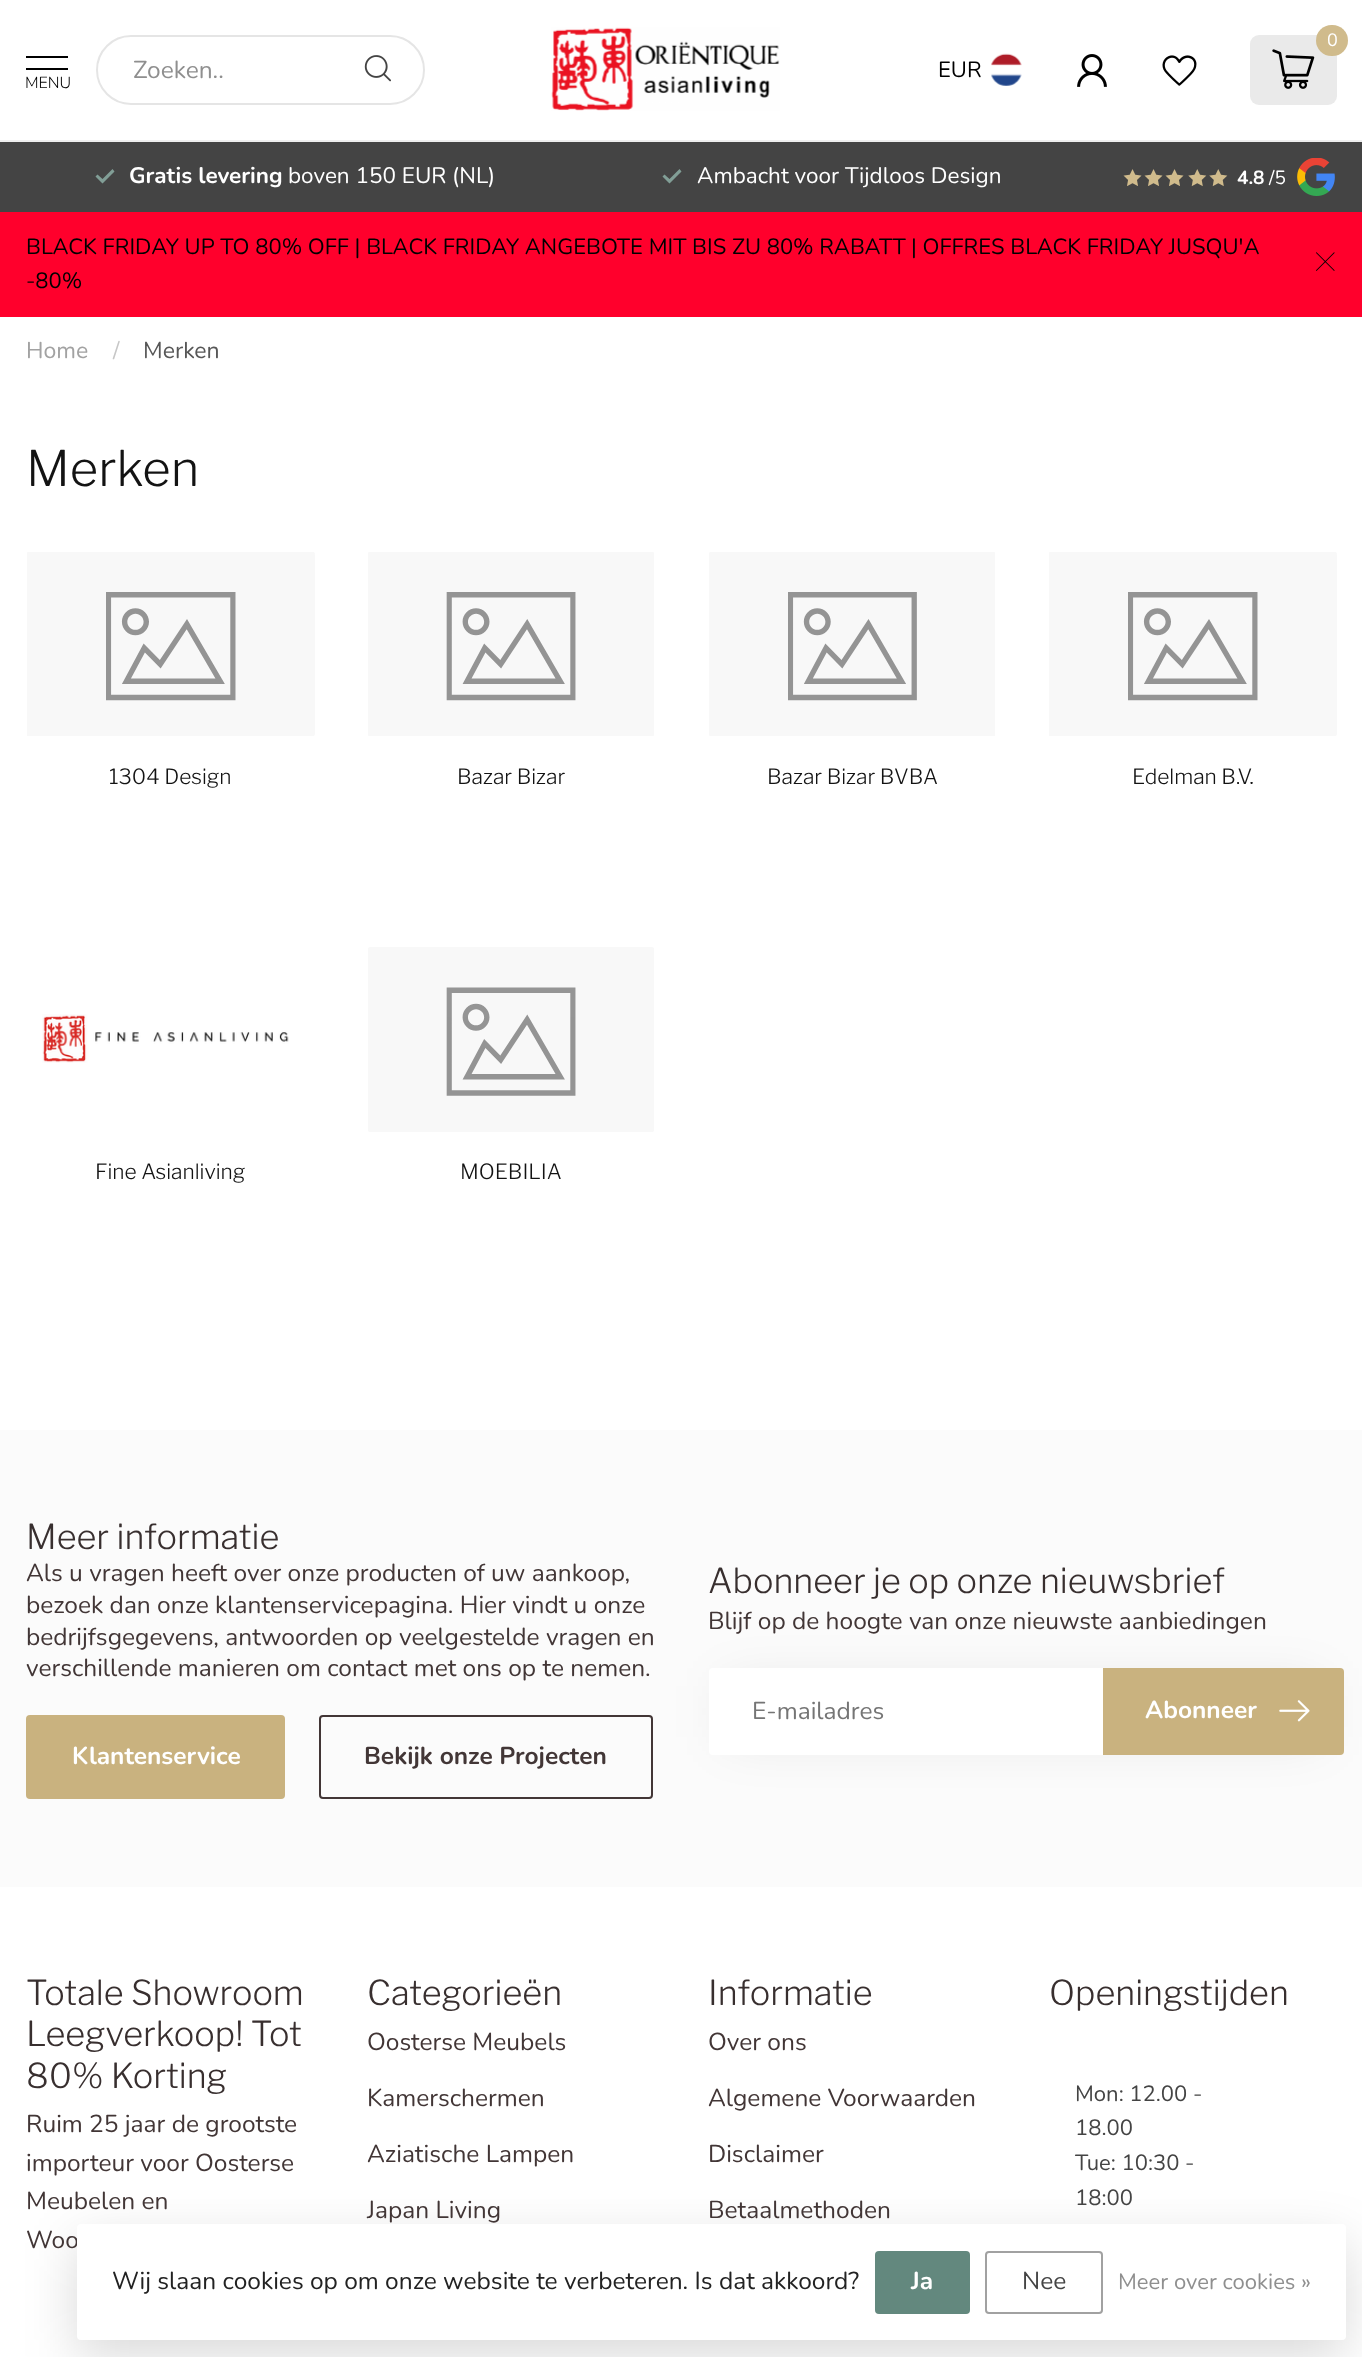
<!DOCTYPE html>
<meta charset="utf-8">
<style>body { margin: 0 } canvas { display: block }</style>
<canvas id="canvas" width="1362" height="2357"></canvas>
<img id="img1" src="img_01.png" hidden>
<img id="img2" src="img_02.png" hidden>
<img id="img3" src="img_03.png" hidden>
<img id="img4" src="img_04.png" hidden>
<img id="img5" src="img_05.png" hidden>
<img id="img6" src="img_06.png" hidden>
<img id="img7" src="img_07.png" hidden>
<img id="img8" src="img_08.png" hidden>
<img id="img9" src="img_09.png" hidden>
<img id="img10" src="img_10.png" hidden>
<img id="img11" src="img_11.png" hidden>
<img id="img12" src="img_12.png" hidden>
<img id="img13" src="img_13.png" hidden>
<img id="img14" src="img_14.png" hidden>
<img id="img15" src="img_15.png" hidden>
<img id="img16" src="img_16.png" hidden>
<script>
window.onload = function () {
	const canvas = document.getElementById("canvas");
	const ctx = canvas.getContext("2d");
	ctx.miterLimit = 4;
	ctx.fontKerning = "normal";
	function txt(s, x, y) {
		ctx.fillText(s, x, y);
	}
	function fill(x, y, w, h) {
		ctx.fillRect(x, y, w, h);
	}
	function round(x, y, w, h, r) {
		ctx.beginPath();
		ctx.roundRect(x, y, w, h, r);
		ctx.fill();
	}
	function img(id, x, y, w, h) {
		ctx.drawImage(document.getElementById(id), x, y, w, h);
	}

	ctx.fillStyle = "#FFFFFF";
	fill(0, 0, 1362, 2357);
	ctx.beginPath();
	ctx.roundRect(97, 36, 327, 68, 34);
	ctx.strokeStyle = "#E5E5E5";
	ctx.lineWidth = 2;
	ctx.stroke();
	img("img1", 364, 55, 27, 27);
	ctx.fillStyle = "#000000";
	fill(26, 56, 42, 2);
	fill(26, 68, 42, 2);
	img("img2", 551, 27, 229, 84);
	ctx.fillStyle = "#EAEAEA";
	round(1250, 35, 87, 70, 9);
	ctx.fillStyle = "#D0BB8C";
	round(1316, 25, 32, 31, 15.5);
	img("img3", 1272, 49, 43, 40);
	img("img4", 991, 53, 31, 33);
	img("img5", 1077, 54, 30, 33);
	img("img6", 1162, 55, 35, 31);
	ctx.fillStyle = "#EEEEEE";
	fill(0, 140, 1362, 2);
	ctx.fillStyle = "#444444";
	fill(0, 142, 1362, 70);
	ctx.fillStyle = "#819E96";
	ctx.beginPath();
	ctx.moveTo(102.5, 183.5);
	ctx.lineTo(95.5, 176.5);
	ctx.lineTo(97.5, 174.5);
	ctx.lineTo(102.5, 179);
	ctx.lineTo(112.5, 169);
	ctx.lineTo(114.5, 171.5);
	ctx.closePath();
	ctx.fill();
	ctx.beginPath();
	ctx.moveTo(669.5, 183.5);
	ctx.lineTo(662.5, 176.5);
	ctx.lineTo(664.5, 174.5);
	ctx.lineTo(669.5, 179);
	ctx.lineTo(679.5, 169);
	ctx.lineTo(681.5, 171.5);
	ctx.closePath();
	ctx.fill();
	img("img7", 1123, 169, 19, 17);
	img("img7", 1144, 169, 19, 17);
	img("img7", 1165, 169, 19, 17);
	img("img8", 1188, 169, 19, 18);
	img("img8", 1209, 169, 19, 18);
	img("img9", 1297, 158, 38, 38);
	ctx.fillStyle = "#FF002C";
	fill(0, 212, 1362, 105);
	img("img10", 1316, 252, 19, 19);
	img("img11", 27, 552, 288, 184);
	img("img12", 368, 552, 286, 184);
	img("img13", 709, 552, 286, 184);
	img("img11", 1049, 552, 288, 184);
	img("img14", 42, 1014, 247, 49);
	img("img15", 368, 947, 286, 185);
	ctx.fillStyle = "#FBFBFB";
	fill(0, 1430, 1362, 457);
	ctx.fillStyle = "#C9B27F";
	round(26, 1715, 259, 84, 4);
	ctx.beginPath();
	ctx.roundRect(320, 1716, 332, 82, 3);
	ctx.strokeStyle = "#423636";
	ctx.stroke();
	ctx.fillStyle = "rgba(0, 0, 0, 0.1)";
	ctx.filter = "blur(26px)";
	ctx.beginPath();
	ctx.rect(726, 1685, 594, 53);
	ctx.fill();
	ctx.filter = "none";
	ctx.fillStyle = "#FFFFFF";
	ctx.beginPath();
	ctx.roundRect(709, 1668, 394, 87, [4, 0, 0, 4]);
	ctx.fill();
	ctx.fillStyle = "#C9B27F";
	ctx.beginPath();
	ctx.roundRect(1103, 1668, 241, 87, [0, 4, 4, 0]);
	ctx.fill();
	img("img16", 1279, 1700, 31, 22);
	ctx.fillStyle = "rgba(0, 0, 0, 0.15)";
	ctx.filter = "blur(26px)";
	ctx.beginPath();
	ctx.roundRect(77, 2242, 1269, 115, 4);
	ctx.fill();
	ctx.filter = "none";
	ctx.font = "24.5px Nunito";
	ctx.fillStyle = "#8F8F8F";
	txt("Zoeken..", 133, 78);
	ctx.font = "300 16px Nunito";
	ctx.fillStyle = "#000000";
	txt("MENU", 25, 88);
	ctx.font = "18px Nunito";
	ctx.fillStyle = "#FFFFFF";
	txt("0", 1327, 46);
	ctx.font = "22.05px Nunito";
	ctx.fillStyle = "#000000";
	txt("EUR", 938, 77);
	ctx.font = "bold 22.5px Nunito";
	ctx.fillStyle = "#FFFFFF";
	txt("Gratis levering", 129, 183);
	ctx.font = "22.5px Nunito";
	txt("boven 150 EUR (NL)", 288, 183);
	txt("Ambacht voor Tijdloos Design", 697, 183);
	ctx.font = "bold 19px Nunito";
	txt("4.8", 1237, 184);
	ctx.font = "19px Nunito";
	txt("/5", 1269, 184);
	ctx.font = "22.05px Nunito";
	ctx.fillStyle = "#000000";
	txt("BLACK FRIDAY UP TO 80% OFF | BLACK FRIDAY ANGEBOTE MIT BIS ZU 80% RABATT", 26, 254);
	txt("| OFFRES BLACK FRIDAY JUSQU'A", 911, 254);
	txt("-80%", 26, 288);
	ctx.font = "23px Nunito";
	ctx.fillStyle = "#A2A2A2";
	txt("Home", 26, 358);
	ctx.fillStyle = "#C7C7C7";
	txt("/", 113, 358);
	ctx.fillStyle = "#575757";
	txt("Merken", 143, 358);
	ctx.font = "300 49px Libre Franklin";
	ctx.fillStyle = "#131313";
	txt("Merken", 26, 486);
	ctx.font = "300 21px Libre Franklin";
	txt("1304 Design", 109, 784);
	txt("Bazar Bizar", 457, 784);
	txt("Bazar Bizar BVBA", 767, 784);
	txt("Edelman B.V.", 1132, 784);
	txt("Fine Asianliving", 95, 1179);
	txt("MOEBILIA", 460, 1179);
	ctx.font = "300 34.25px Libre Franklin";
	ctx.fillStyle = "#382F2F";
	txt("Meer informatie", 26, 1549);
	ctx.font = "24.5px Nunito";
	ctx.fillStyle = "#423636";
	txt("Als u vragen heeft over onze producten of uw aankoop,", 26, 1581);
	txt("bezoek dan onze klantenservicepagina. Hier vindt u onze", 26, 1613);
	txt("bedrijfsgegevens, antwoorden op veelgestelde vragen en", 26, 1645);
	txt("verschillende manieren om contact met ons op te nemen.", 26, 1676);
	ctx.font = "bold 24.5px Nunito";
	ctx.fillStyle = "#FFFFFF";
	txt("Klantenservice", 72, 1764);
	ctx.fillStyle = "#423636";
	txt("Bekijk onze Projecten", 364, 1764);
	ctx.font = "300 34.25px Libre Franklin";
	ctx.fillStyle = "#382F2F";
	txt("Abonneer je op onze nieuwsbrief", 708, 1593);
	ctx.font = "24.5px Nunito";
	ctx.fillStyle = "#423636";
	txt("Blijf op de hoogte van onze nieuwste aanbiedingen", 708, 1629);
	ctx.fillStyle = "#757575";
	txt("E-mailadres", 752, 1719);
	ctx.font = "bold 24.5px Nunito";
	ctx.fillStyle = "#FFFFFF";
	txt("Abonneer", 1145, 1718);
	ctx.font = "300 34.25px Libre Franklin";
	ctx.fillStyle = "#382F2F";
	txt("Totale Showroom", 26, 2005);
	txt("Leegverkoop! Tot", 26, 2046);
	txt("80% Korting", 26, 2088);
	ctx.font = "24.5px Nunito";
	ctx.fillStyle = "#423636";
	txt("Ruim 25 jaar de grootste", 26, 2132);
	txt("importeur voor Oosterse", 26, 2171);
	txt("Meubelen en", 26, 2209);
	txt("Woo", 26, 2248);
	ctx.font = "300 34.25px Libre Franklin";
	ctx.fillStyle = "#382F2F";
	txt("Categorieën", 367, 2005);
	ctx.font = "24.5px Nunito";
	ctx.fillStyle = "#423636";
	txt("Oosterse Meubels", 367, 2050);
	txt("Kamerschermen", 367, 2106);
	txt("Aziatische Lampen", 367, 2162);
	txt("Japan Living", 367, 2218);
	ctx.font = "300 34.25px Libre Franklin";
	ctx.fillStyle = "#382F2F";
	txt("Informatie", 708, 2005);
	ctx.font = "24.5px Nunito";
	ctx.fillStyle = "#423636";
	txt("Over ons", 708, 2050);
	txt("Algemene Voorwaarden", 708, 2106);
	txt("Disclaimer", 708, 2162);
	txt("Betaalmethoden", 708, 2218);
	ctx.font = "300 34.25px Libre Franklin";
	ctx.fillStyle = "#382F2F";
	txt("Openingstijden", 1049, 2005);
	ctx.font = "22.05px Nunito";
	ctx.fillStyle = "#444444";
	txt("Mon: 12.00 -", 1075, 2101);
	txt("18.00", 1075, 2135);
	txt("Tue: 10:30 -", 1075, 2170);
	txt("18:00", 1075, 2205);
	ctx.fillStyle = "#FFFFFF";
	round(77, 2224, 1269, 116, 4);
	ctx.font = "24.5px Nunito";
	ctx.fillStyle = "#222222";
	txt("Wij slaan cookies op om onze website te verbeteren. Is dat akkoord?", 112, 2289);
	ctx.fillStyle = "#63887E";
	round(875, 2251, 95, 63, 4);
	ctx.font = "bold 24.5px Nunito";
	ctx.fillStyle = "#FFFFFF";
	txt("Ja", 911, 2289);
	ctx.beginPath();
	ctx.roundRect(986, 2252, 116, 61, 3);
	ctx.strokeStyle = "#A1A1A1";
	ctx.stroke();
	ctx.font = "24.5px Nunito";
	ctx.fillStyle = "#444444";
	txt("Nee", 1022, 2289);
	ctx.font = "22.05px Nunito";
	ctx.fillStyle = "#8F8F8F";
	txt("Meer over cookies »", 1118, 2289);
};
</script>
